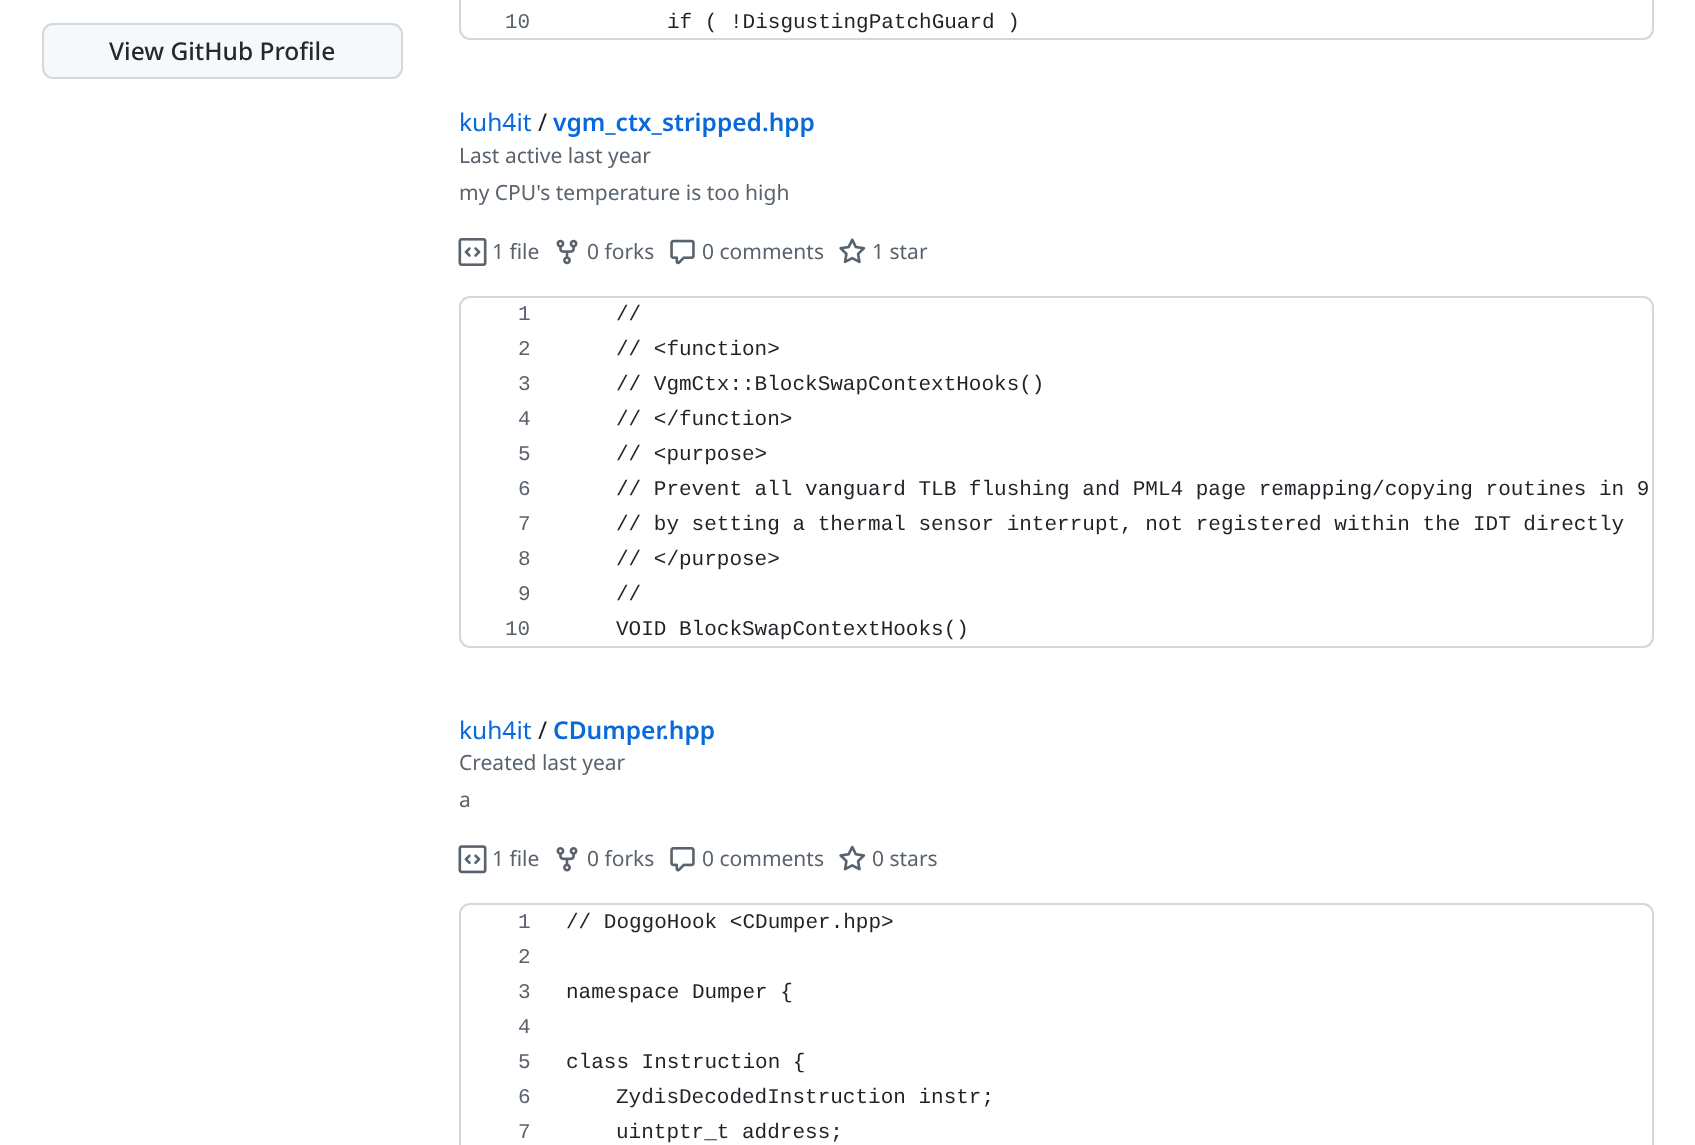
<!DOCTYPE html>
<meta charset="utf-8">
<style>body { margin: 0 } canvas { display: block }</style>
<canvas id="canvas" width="1695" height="1145"></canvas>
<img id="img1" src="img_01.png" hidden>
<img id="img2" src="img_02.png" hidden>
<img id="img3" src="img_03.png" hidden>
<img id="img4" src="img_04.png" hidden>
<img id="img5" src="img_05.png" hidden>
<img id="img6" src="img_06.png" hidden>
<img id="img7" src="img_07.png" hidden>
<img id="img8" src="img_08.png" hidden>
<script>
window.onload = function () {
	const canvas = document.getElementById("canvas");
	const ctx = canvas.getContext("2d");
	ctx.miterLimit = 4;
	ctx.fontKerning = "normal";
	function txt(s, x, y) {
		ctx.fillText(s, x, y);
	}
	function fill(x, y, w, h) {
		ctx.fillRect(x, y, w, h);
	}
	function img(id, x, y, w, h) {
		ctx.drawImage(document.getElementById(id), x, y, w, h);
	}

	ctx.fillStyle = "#FFFFFF";
	fill(0, 0, 1695, 1145);
	ctx.fillStyle = "#F6F8FA";
	ctx.beginPath();
	ctx.roundRect(43, 24, 359, 54, 10);
	ctx.fill();
	ctx.strokeStyle = "#D1D9E0";
	ctx.lineWidth = 2;
	ctx.stroke();
	ctx.beginPath();
	ctx.roundRect(460, -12, 1193, 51, 10);
	ctx.stroke();
	img("img1", 458, 238, 29, 28);
	img("img2", 556, 239, 22, 26);
	img("img3", 670, 239, 25, 26);
	img("img4", 839, 238, 27, 26);
	ctx.beginPath();
	ctx.roundRect(460, 297, 1193, 350, 10);
	ctx.stroke();
	img("img5", 458, 845, 29, 29);
	img("img6", 556, 847, 22, 25);
	img("img7", 670, 847, 25, 25);
	img("img8", 839, 845, 27, 26);
	ctx.beginPath();
	ctx.roundRect(460, 904, 1193, 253, 10);
	ctx.stroke();
	ctx.font = "500 24.5px Noto Sans";
	ctx.fillStyle = "#25292E";
	txt("View GitHub Profile", 109, 60);
	ctx.font = "21px Liberation Mono";
	ctx.fillStyle = "#59636E";
	txt("10", 505, 28);
	ctx.fillStyle = "#1F2328";
	txt("if ( !DisgustingPatchGuard )", 667, 28);
	ctx.font = "24.5px Noto Sans";
	ctx.fillStyle = "#0969DA";
	txt("kuh4it", 459, 131);
	ctx.fillStyle = "#1F2328";
	txt("/", 538, 131);
	ctx.font = "600 24.5px Noto Sans";
	ctx.fillStyle = "#0969DA";
	txt("vgm_ctx_stripped.hpp", 553, 131);
	ctx.font = "21px Noto Sans";
	ctx.fillStyle = "#59636E";
	txt("Last active last year", 459, 163);
	txt("my CPU's temperature is too high", 459, 200);
	txt("1 file", 492, 259);
	txt("0 forks", 587, 259);
	txt("0 comments", 702, 259);
	txt("1 star", 872, 259);
	ctx.font = "21px Liberation Mono";
	txt("1", 518, 320);
	ctx.fillStyle = "#1F2328";
	txt("//", 616, 320);
	ctx.fillStyle = "#59636E";
	txt("2", 518, 355);
	ctx.fillStyle = "#1F2328";
	txt("// <function>", 616, 355);
	ctx.fillStyle = "#59636E";
	txt("3", 518, 390);
	ctx.fillStyle = "#1F2328";
	txt("// VgmCtx::BlockSwapContextHooks()", 616, 390);
	ctx.fillStyle = "#59636E";
	txt("4", 518, 425);
	ctx.fillStyle = "#1F2328";
	txt("// <\/function>", 616, 425);
	ctx.fillStyle = "#59636E";
	txt("5", 518, 460);
	ctx.fillStyle = "#1F2328";
	txt("// <purpose>", 616, 460);
	ctx.fillStyle = "#59636E";
	txt("6", 518, 495);
	ctx.fillStyle = "#1F2328";
	txt("// Prevent all vanguard TLB flushing and PML4 page remapping/copying routines in 9", 616, 495);
	ctx.fillStyle = "#59636E";
	txt("7", 518, 530);
	ctx.fillStyle = "#1F2328";
	txt("// by setting a thermal sensor interrupt, not registered within the IDT directly", 616, 530);
	ctx.fillStyle = "#59636E";
	txt("8", 518, 565);
	ctx.fillStyle = "#1F2328";
	txt("// <\/purpose>", 616, 565);
	ctx.fillStyle = "#59636E";
	txt("9", 518, 600);
	ctx.fillStyle = "#1F2328";
	txt("//", 616, 600);
	ctx.fillStyle = "#59636E";
	txt("10", 505, 635);
	ctx.fillStyle = "#1F2328";
	txt("VOID BlockSwapContextHooks()", 616, 635);
	ctx.font = "24.5px Noto Sans";
	ctx.fillStyle = "#0969DA";
	txt("kuh4it", 459, 739);
	ctx.fillStyle = "#1F2328";
	txt("/", 538, 739);
	ctx.font = "600 24.5px Noto Sans";
	ctx.fillStyle = "#0969DA";
	txt("CDumper.hpp", 553, 739);
	ctx.font = "21px Noto Sans";
	ctx.fillStyle = "#59636E";
	txt("Created last year", 459, 770);
	txt("a", 459, 807);
	txt("1 file", 492, 866);
	txt("0 forks", 587, 866);
	txt("0 comments", 702, 866);
	txt("0 stars", 872, 866);
	ctx.font = "21px Liberation Mono";
	txt("1", 518, 928);
	ctx.fillStyle = "#1F2328";
	txt("// DoggoHook <CDumper.hpp>", 566, 928);
	ctx.fillStyle = "#59636E";
	txt("2", 518, 963);
	txt("3", 518, 998);
	ctx.fillStyle = "#1F2328";
	txt("namespace Dumper {", 566, 998);
	ctx.fillStyle = "#59636E";
	txt("4", 518, 1033);
	txt("5", 518, 1068);
	ctx.fillStyle = "#1F2328";
	txt("class Instruction {", 566, 1068);
	ctx.fillStyle = "#59636E";
	txt("6", 518, 1103);
	ctx.fillStyle = "#1F2328";
	txt("ZydisDecodedInstruction instr;", 616, 1103);
	ctx.fillStyle = "#59636E";
	txt("7", 518, 1138);
	ctx.fillStyle = "#1F2328";
	txt("uintptr_t address;", 616, 1138);
};
</script>
